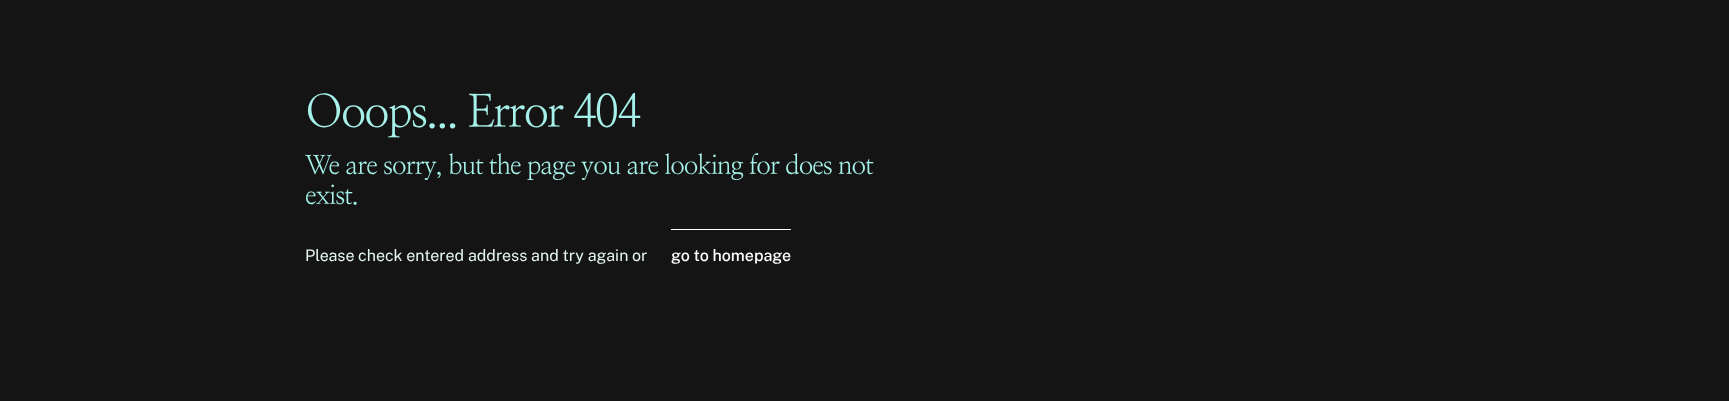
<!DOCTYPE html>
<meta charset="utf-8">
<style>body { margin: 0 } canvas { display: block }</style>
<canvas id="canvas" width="1729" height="401"></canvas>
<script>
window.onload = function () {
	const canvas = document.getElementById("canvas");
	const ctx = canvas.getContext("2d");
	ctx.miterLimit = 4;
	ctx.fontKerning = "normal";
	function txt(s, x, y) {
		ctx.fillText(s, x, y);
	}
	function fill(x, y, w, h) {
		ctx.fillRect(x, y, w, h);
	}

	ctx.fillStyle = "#141414";
	fill(0, 0, 1729, 401);
	ctx.fillStyle = "#FFFFFF";
	fill(671, 229, 120, 1);
	ctx.letterSpacing = "-2px";
	ctx.font = "45px NanumMyeongjo";
	ctx.fillStyle = "#A6F1E9";
	txt("Ooops... Error 404", 305, 127);
	ctx.letterSpacing = "-1px";
	ctx.font = "26px NanumMyeongjo";
	txt("We are sorry, but the page you are looking for does not", 305, 174);
	txt("exist.", 305, 204);
	ctx.letterSpacing = "0px";
	ctx.font = "16px Public Sans";
	ctx.fillStyle = "#E4F6F4";
	txt("Please check entered address and try again or", 305, 261);
	ctx.font = "500 16px Public Sans";
	ctx.fillStyle = "#FFFFFF";
	txt("go to homepage", 671, 261);
};
</script>
